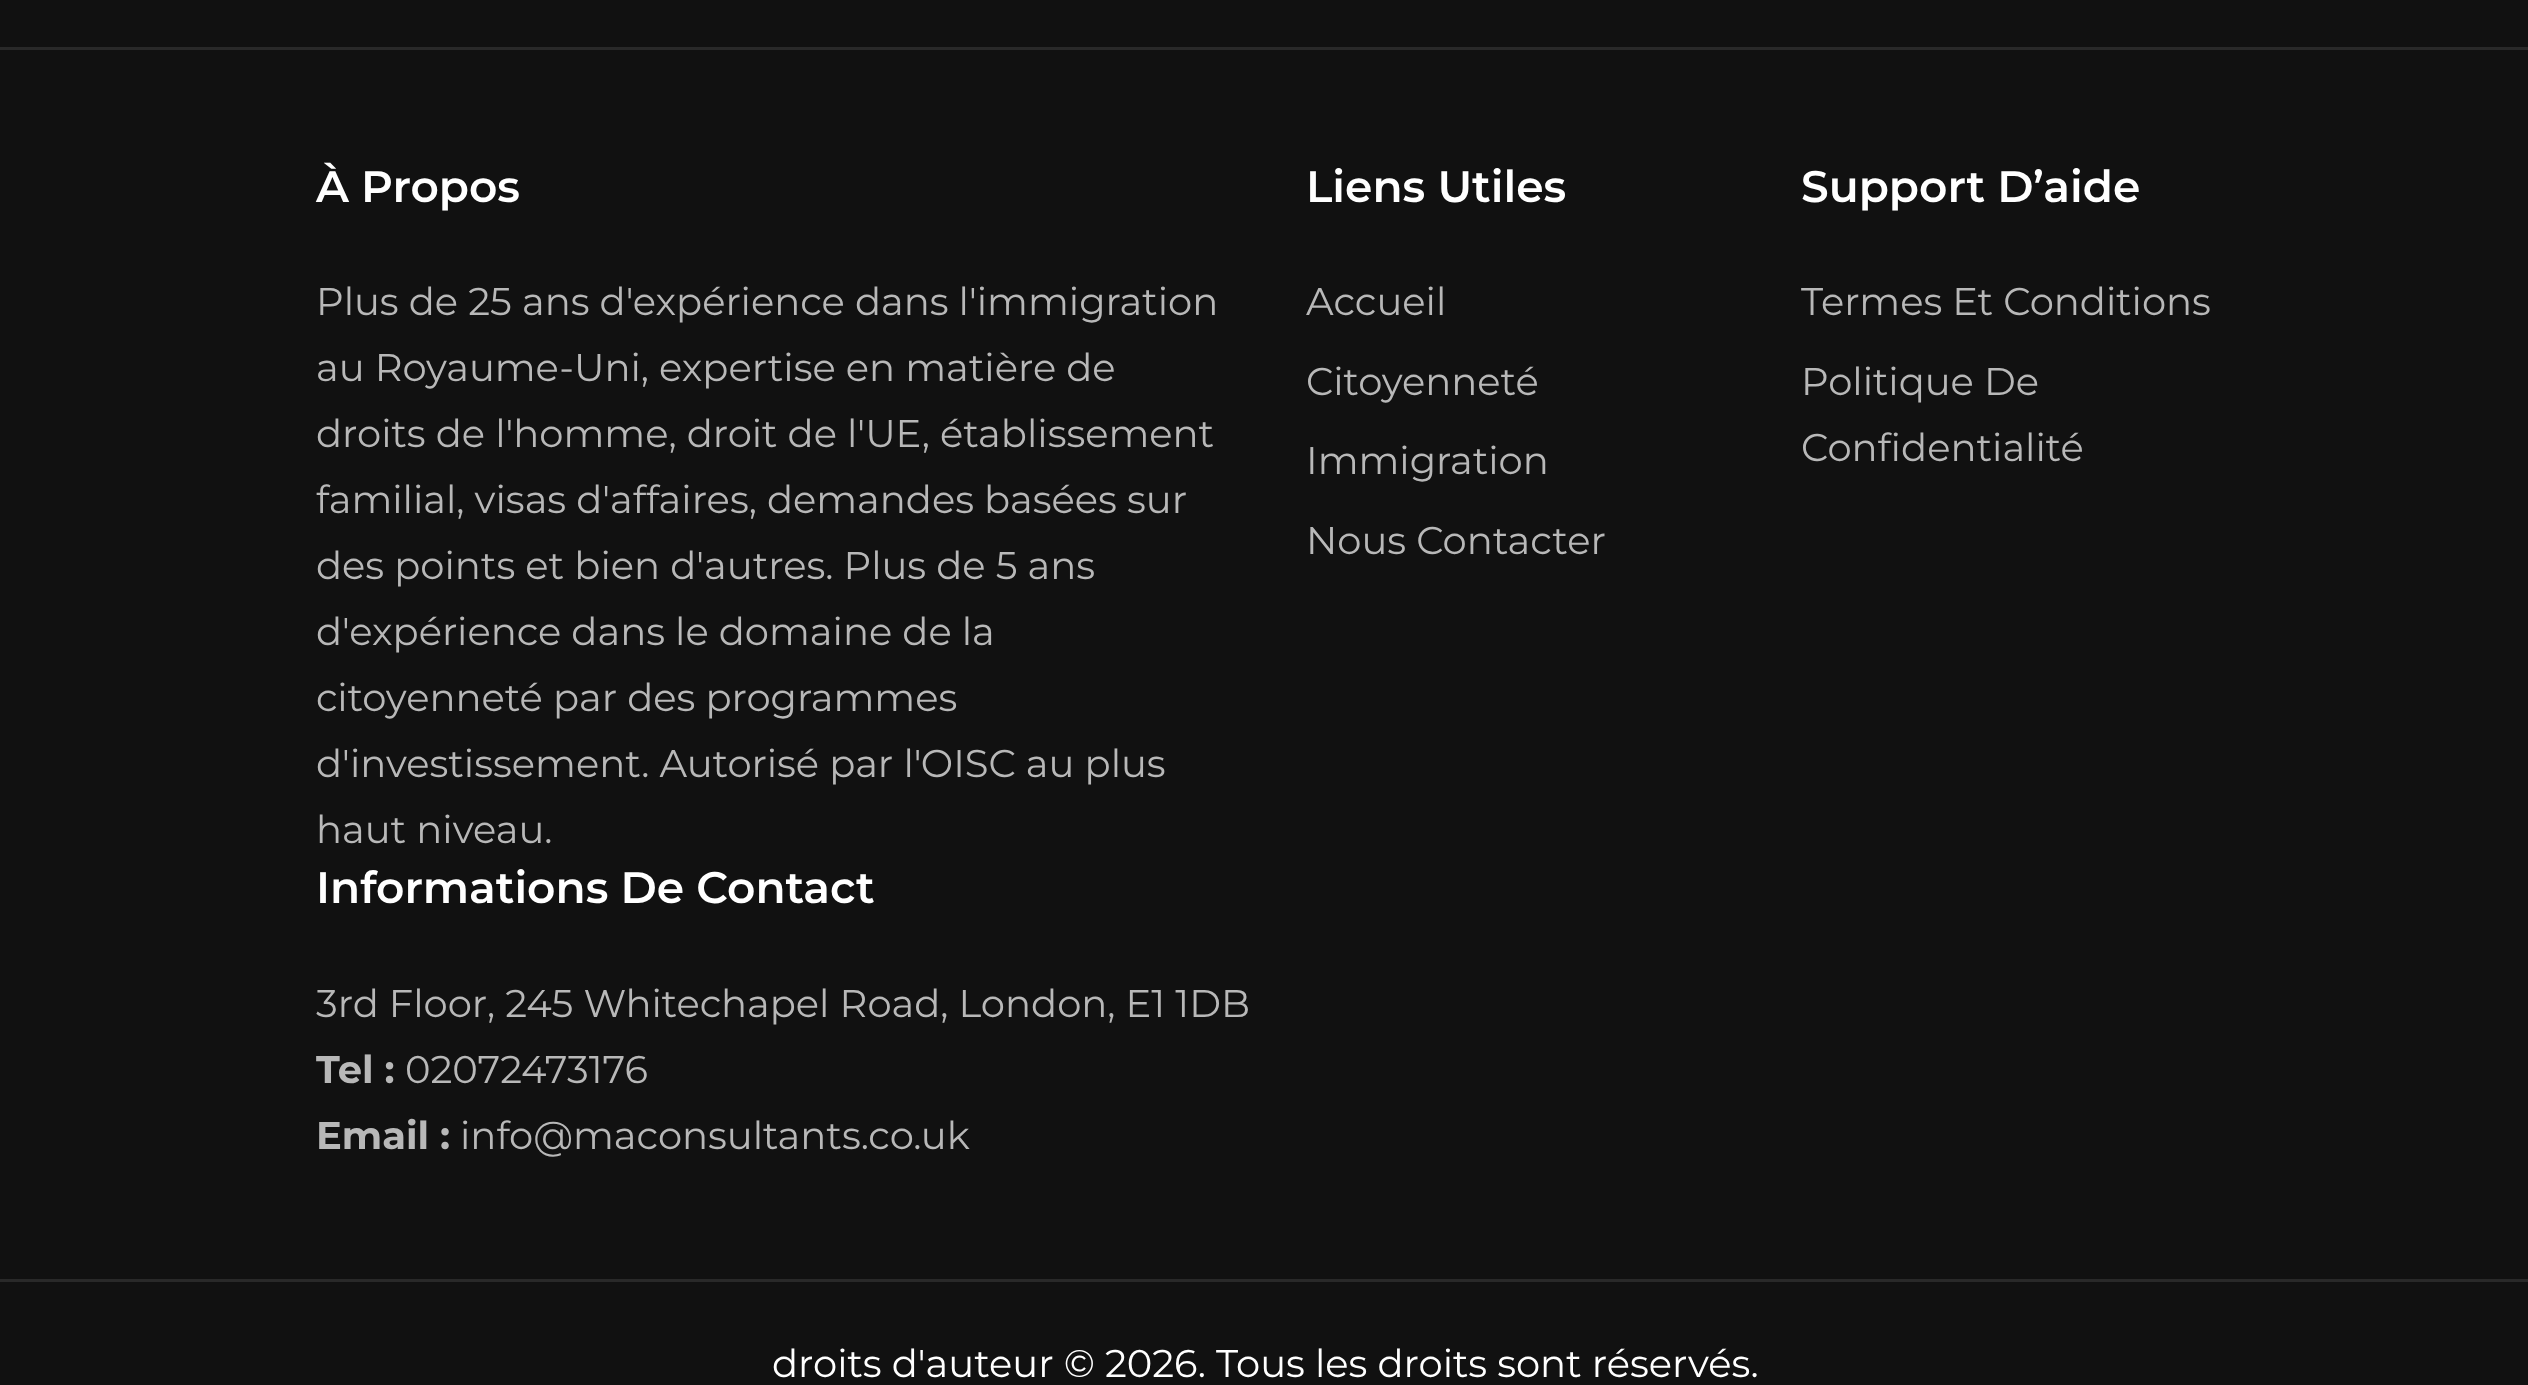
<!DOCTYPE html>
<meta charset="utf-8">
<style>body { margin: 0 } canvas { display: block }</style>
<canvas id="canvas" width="2528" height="1385"></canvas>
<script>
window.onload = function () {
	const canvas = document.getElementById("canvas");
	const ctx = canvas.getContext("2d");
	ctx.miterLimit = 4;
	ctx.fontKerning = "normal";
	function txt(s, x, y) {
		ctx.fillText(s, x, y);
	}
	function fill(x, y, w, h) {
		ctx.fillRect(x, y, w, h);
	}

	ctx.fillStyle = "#111111";
	fill(0, 0, 2528, 1385);
	ctx.fillStyle = "#292929";
	fill(0, 47, 2528, 3);
	fill(0, 1279, 2528, 3);
	ctx.font = "600 44px Montserrat";
	ctx.fillStyle = "#FFFFFF";
	txt("À Propos", 316, 202);
	ctx.font = "38.5px Montserrat";
	ctx.fillStyle = "#B8B8B8";
	txt("Plus de 25 ans d'expérience dans l'immigration", 316, 315);
	txt("au Royaume-Uni, expertise en matière de", 316, 381);
	txt("droits de l'homme, droit de l'UE, établissement", 316, 447);
	txt("familial, visas d'affaires, demandes basées sur", 316, 513);
	txt("des points et bien d'autres. Plus de 5 ans", 316, 579);
	txt("d'expérience dans le domaine de la", 316, 645);
	txt("citoyenneté par des programmes", 316, 711);
	txt("d'investissement. Autorisé par l'OISC au plus", 316, 777);
	txt("haut niveau.", 316, 843);
	ctx.font = "600 44px Montserrat";
	ctx.fillStyle = "#FFFFFF";
	txt("Liens Utiles", 1306, 202);
	ctx.font = "38.5px Montserrat";
	ctx.fillStyle = "#B8B8B8";
	txt("Accueil", 1306, 315);
	txt("Citoyenneté", 1306, 395);
	txt("Immigration", 1306, 474);
	txt("Nous Contacter", 1306, 554);
	ctx.font = "600 44px Montserrat";
	ctx.fillStyle = "#FFFFFF";
	txt("Support D’aide", 1801, 202);
	ctx.font = "38.5px Montserrat";
	ctx.fillStyle = "#B8B8B8";
	txt("Termes Et Conditions", 1801, 315);
	txt("Politique De", 1801, 395);
	txt("Confidentialité", 1801, 461);
	ctx.font = "600 44px Montserrat";
	ctx.fillStyle = "#FFFFFF";
	txt("Informations De Contact", 316, 903);
	ctx.font = "38.5px Montserrat";
	ctx.fillStyle = "#B8B8B8";
	txt("3rd Floor, 245 Whitechapel Road, London, E1 1DB", 316, 1017);
	ctx.font = "bold 38.5px Montserrat";
	txt("Tel :", 316, 1083);
	ctx.font = "38.5px Montserrat";
	txt("02072473176", 405, 1083);
	ctx.font = "bold 38.5px Montserrat";
	txt("Email :", 316, 1149);
	ctx.font = "38.5px Montserrat";
	txt("info@maconsultants.co.uk", 460, 1149);
	ctx.fillStyle = "#FFFFFF";
	txt("droits d'auteur © 2026. Tous les droits sont réservés.", 772, 1377);
};
</script>
